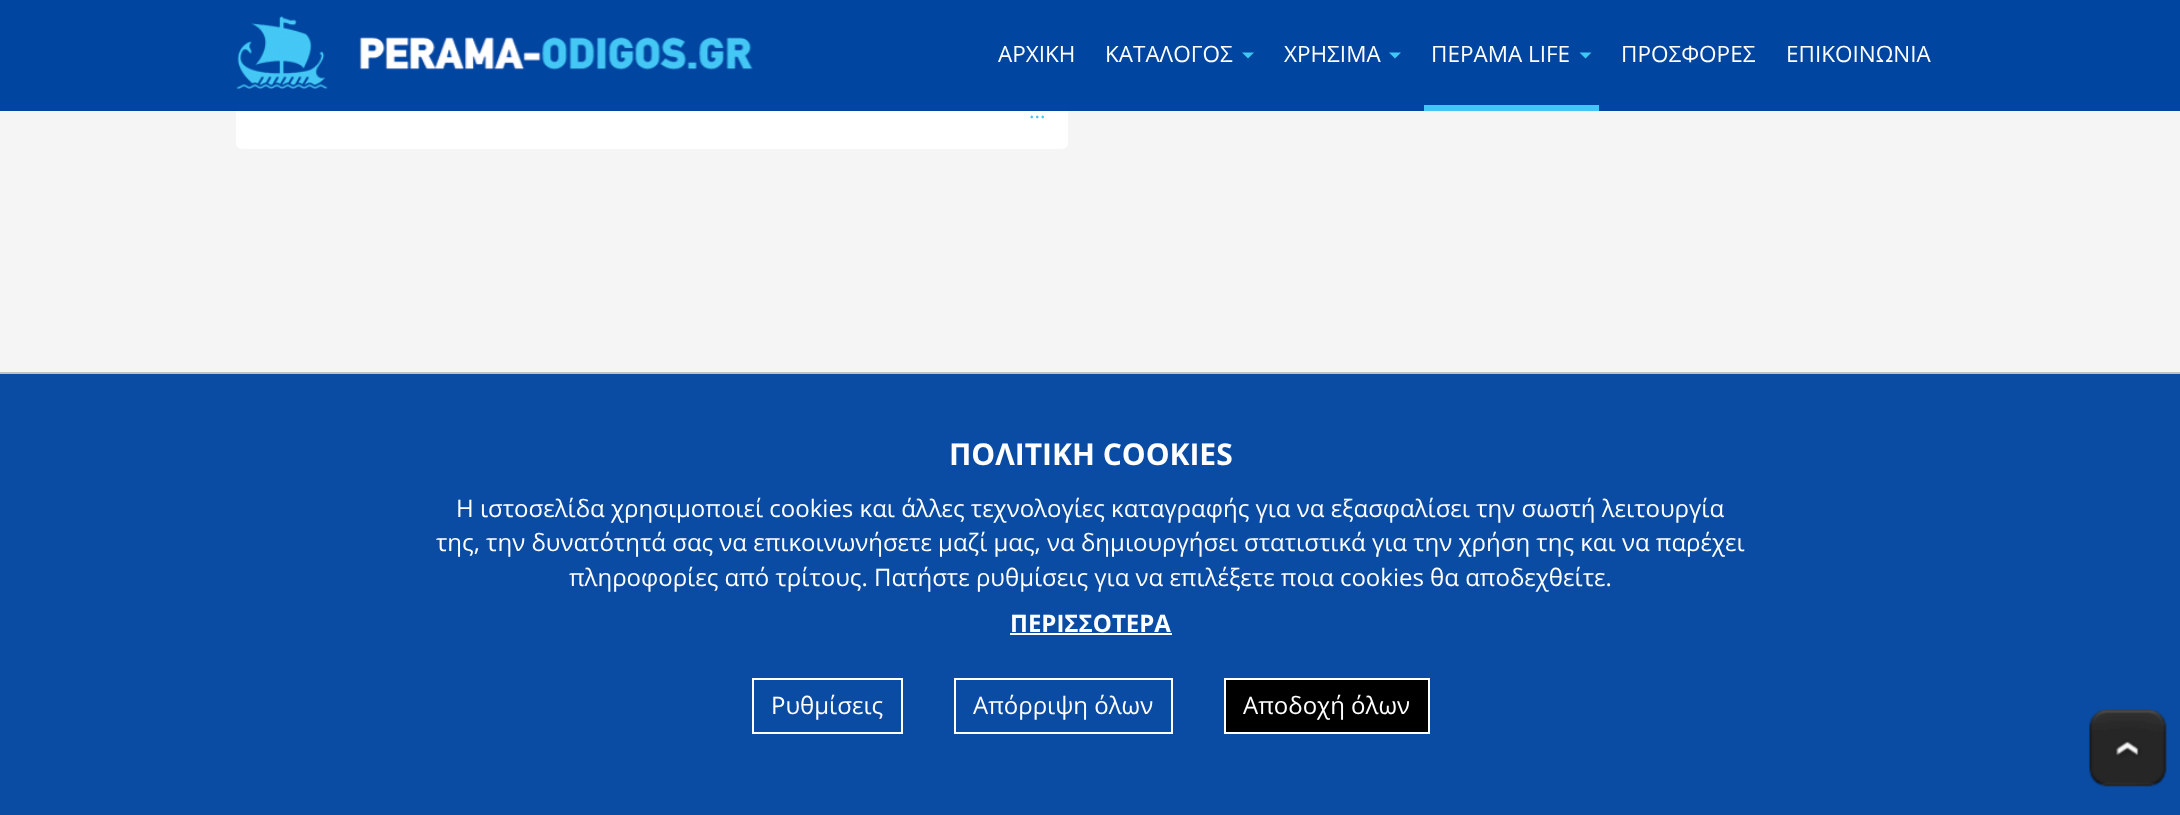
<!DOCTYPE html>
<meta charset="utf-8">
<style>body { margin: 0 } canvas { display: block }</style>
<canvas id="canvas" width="2180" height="815"></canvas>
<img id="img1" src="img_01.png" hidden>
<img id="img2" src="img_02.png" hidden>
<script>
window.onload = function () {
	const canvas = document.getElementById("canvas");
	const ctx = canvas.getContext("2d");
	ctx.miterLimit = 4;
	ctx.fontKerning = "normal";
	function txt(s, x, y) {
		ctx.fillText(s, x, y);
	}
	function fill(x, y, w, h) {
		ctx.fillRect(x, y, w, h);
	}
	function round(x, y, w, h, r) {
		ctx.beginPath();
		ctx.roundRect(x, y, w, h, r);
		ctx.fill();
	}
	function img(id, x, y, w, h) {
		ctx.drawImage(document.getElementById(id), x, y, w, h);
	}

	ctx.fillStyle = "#0A4CA4";
	fill(0, 0, 2180, 815);
	ctx.fillStyle = "#F5F5F5";
	fill(0, 111, 2180, 261);
	ctx.fillStyle = "#FFFFFF";
	round(236, -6, 832, 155, 6);
	ctx.fillStyle = "#0045A0";
	fill(0, 0, 2180, 111);
	img("img1", 236, 16, 517, 73);
	ctx.fillStyle = "#40C8F4";
	ctx.beginPath();
	ctx.moveTo(1242, 52.5);
	ctx.lineTo(1254, 52.5);
	ctx.lineTo(1248, 58.5);
	ctx.closePath();
	ctx.fill();
	ctx.beginPath();
	ctx.moveTo(1389, 52.5);
	ctx.lineTo(1401, 52.5);
	ctx.lineTo(1395, 58.5);
	ctx.closePath();
	ctx.fill();
	ctx.beginPath();
	ctx.moveTo(1579.5, 52.5);
	ctx.lineTo(1591.5, 52.5);
	ctx.lineTo(1585.5, 58.5);
	ctx.closePath();
	ctx.fill();
	fill(1424, 105, 175, 6);
	ctx.fillStyle = "#C1C1C1";
	fill(0, 372, 2180, 2);
	ctx.fillStyle = "#FFFFFF";
	fill(1010, 633, 162, 2);
	ctx.strokeStyle = "#FFFFFF";
	ctx.lineWidth = 2;
	ctx.strokeRect(753, 679, 149, 54);
	ctx.strokeRect(955, 679, 217, 54);
	ctx.fillStyle = "#000000";
	ctx.beginPath();
	ctx.rect(1225, 679, 204, 54);
	ctx.fill();
	ctx.stroke();
	img("img2", 2089, 709, 78, 78);
	ctx.font = "22.5px Open Sans";
	ctx.fillStyle = "#FFFFFF";
	txt("ΑΡΧΙΚΗ", 998, 62);
	txt("ΚΑΤΑΛΟΓΟΣ", 1105, 62);
	txt("ΧΡΗΣΙΜΑ", 1284, 62);
	txt("ΠΕΡΑΜΑ LIFE", 1431, 62);
	txt("ΠΡΟΣΦΟΡΕΣ", 1621, 62);
	txt("ΕΠΙΚΟΙΝΩΝΙΑ", 1786, 62);
	ctx.font = "21px Open Sans";
	ctx.fillStyle = "#40C8F4";
	txt("...", 1029, 118);
	ctx.font = "bold 30px Open Sans";
	ctx.fillStyle = "#FFFFFF";
	txt("ΠΟΛΙΤΙΚΗ COOKIES", 949, 465);
	ctx.font = "24px Open Sans";
	txt("Η ιστοσελίδα χρησιμοποιεί cookies και άλλες τεχνολογίες καταγραφής για να εξασφαλίσει την σωστή λειτουργία", 456, 517);
	txt("της, την δυνατότητά σας να επικοινωνήσετε μαζί μας, να δημιουργήσει στατιστικά για την χρήση της και να παρέχει", 436, 551);
	txt("πληροφορίες από τρίτους. Πατήστε ρυθμίσεις για να επιλέξετε ποια cookies θα αποδεχθείτε.", 569, 586);
	ctx.font = "bold 24px Open Sans";
	txt("ΠΕΡΙΣΣΟΤΕΡΑ", 1010, 632);
	ctx.font = "24px Open Sans";
	txt("Ρυθμίσεις", 771, 714);
	txt("Απόρριψη όλων", 973, 714);
	txt("Αποδοχή όλων", 1243, 714);
};
</script>
